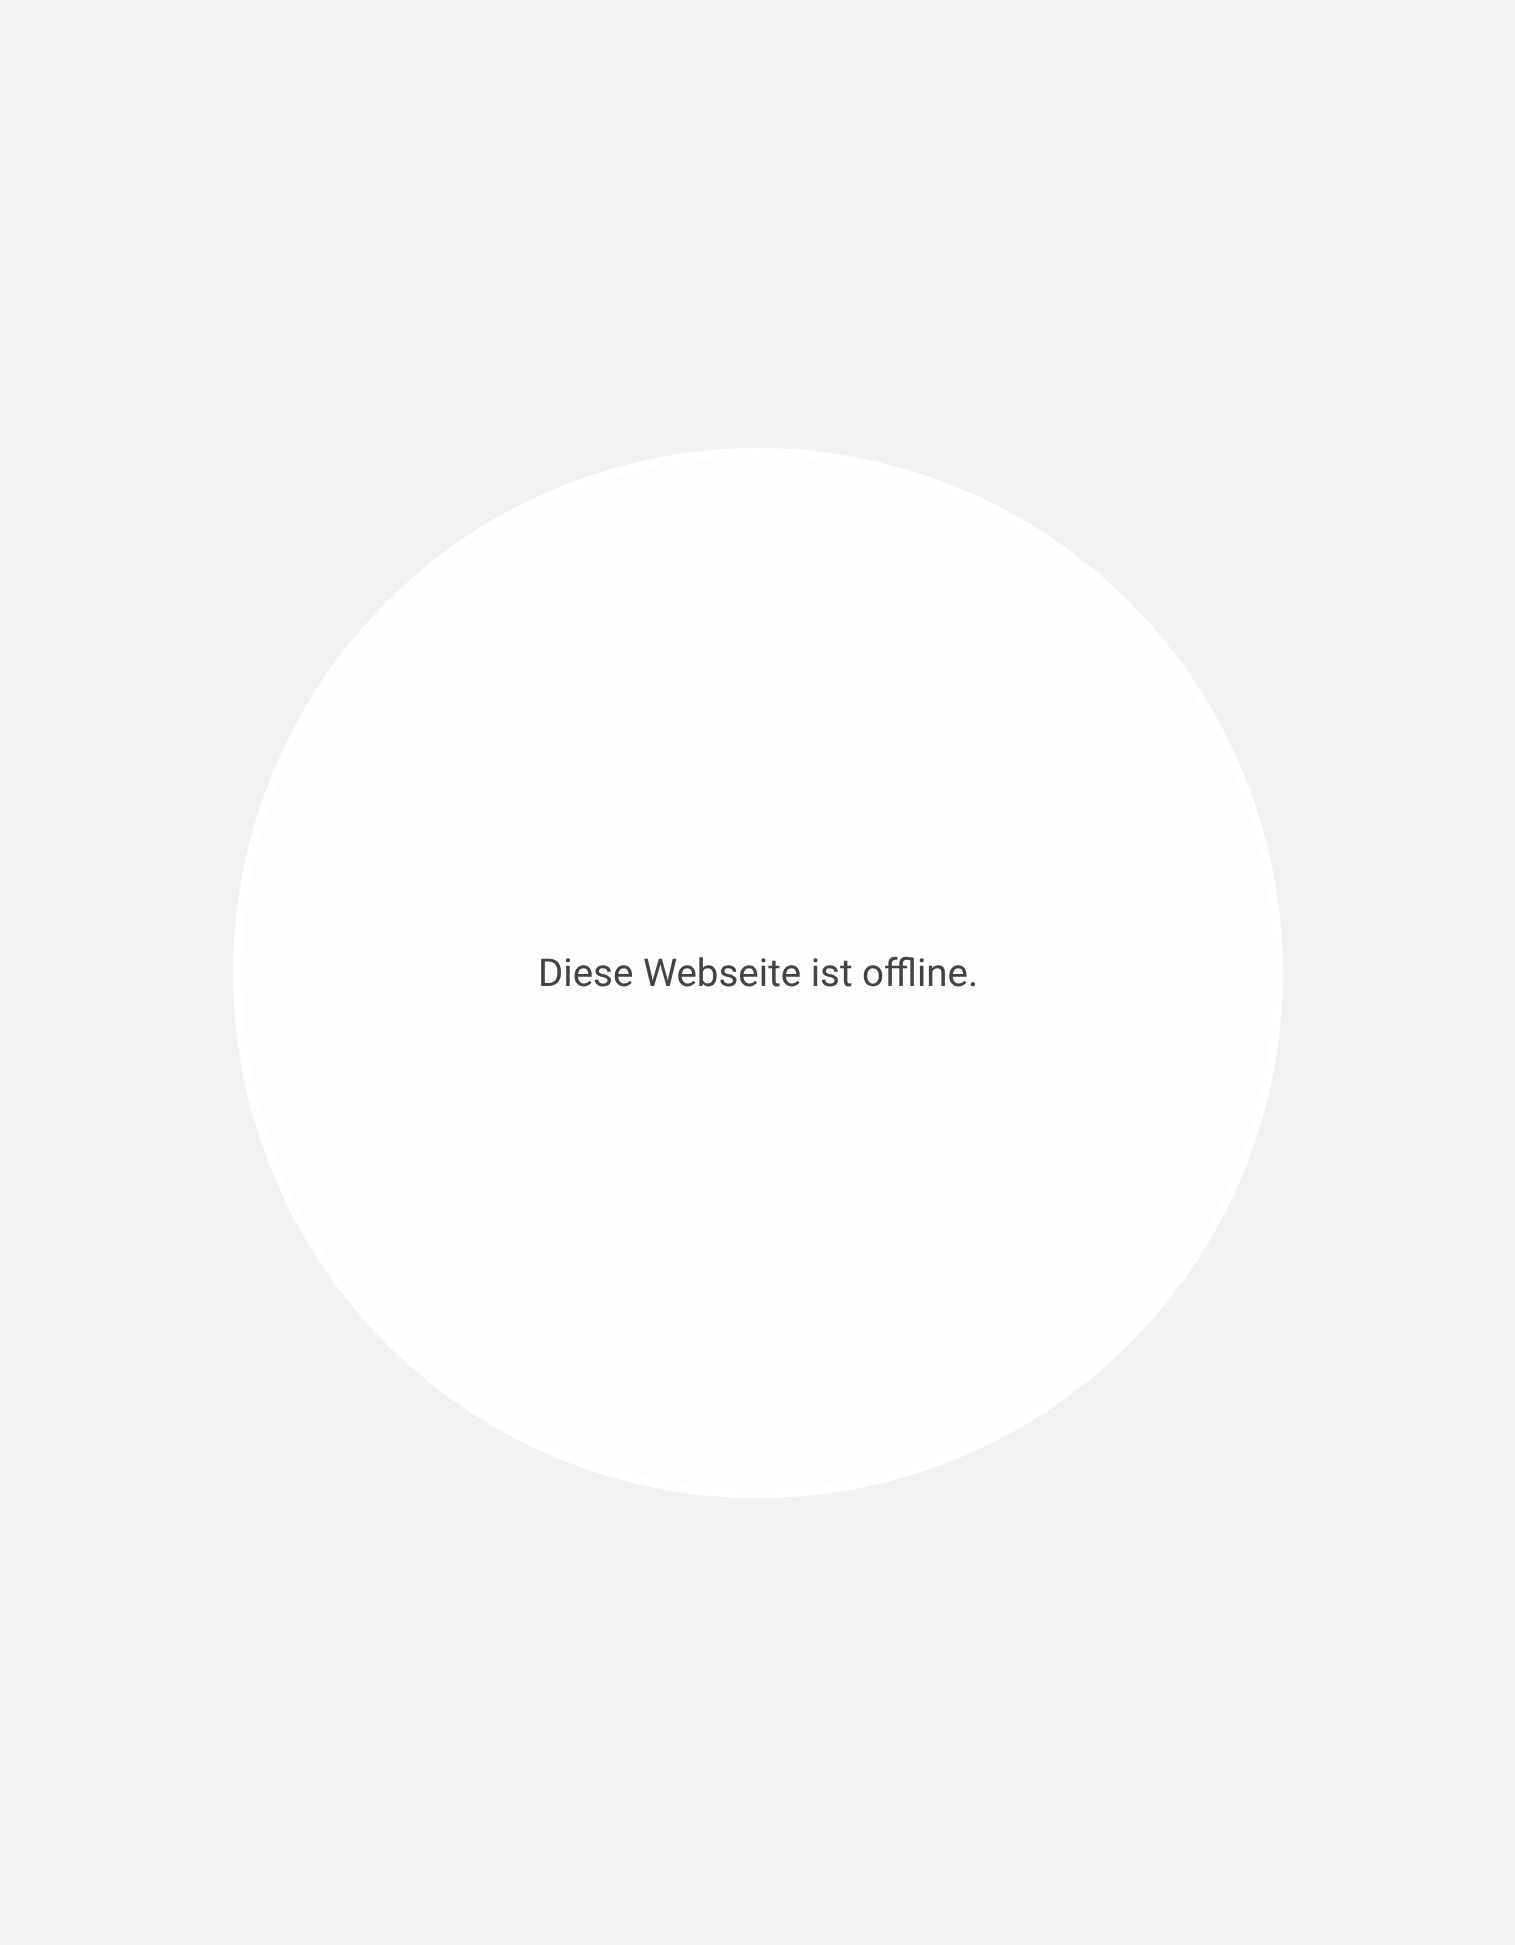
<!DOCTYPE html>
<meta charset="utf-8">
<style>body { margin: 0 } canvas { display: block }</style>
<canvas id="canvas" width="1515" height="1945"></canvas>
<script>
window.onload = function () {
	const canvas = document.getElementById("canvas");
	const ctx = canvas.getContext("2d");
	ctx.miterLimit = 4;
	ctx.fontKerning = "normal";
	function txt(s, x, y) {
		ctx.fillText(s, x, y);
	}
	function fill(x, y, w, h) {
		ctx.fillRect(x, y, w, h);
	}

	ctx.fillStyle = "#F2F2F2";
	fill(0, 0, 1515, 1945);
	ctx.fillStyle = "#FDFDFD";
	ctx.beginPath();
	ctx.arc(758, 973, 520.5, 0, Math.PI * 2);
	ctx.fill();
	ctx.strokeStyle = "#FFFFFF";
	ctx.lineWidth = 9;
	ctx.stroke();
	ctx.font = "38.5px Roboto";
	ctx.fillStyle = "#434343";
	txt("Diese Webseite ist offline.", 538, 986);
};
</script>
